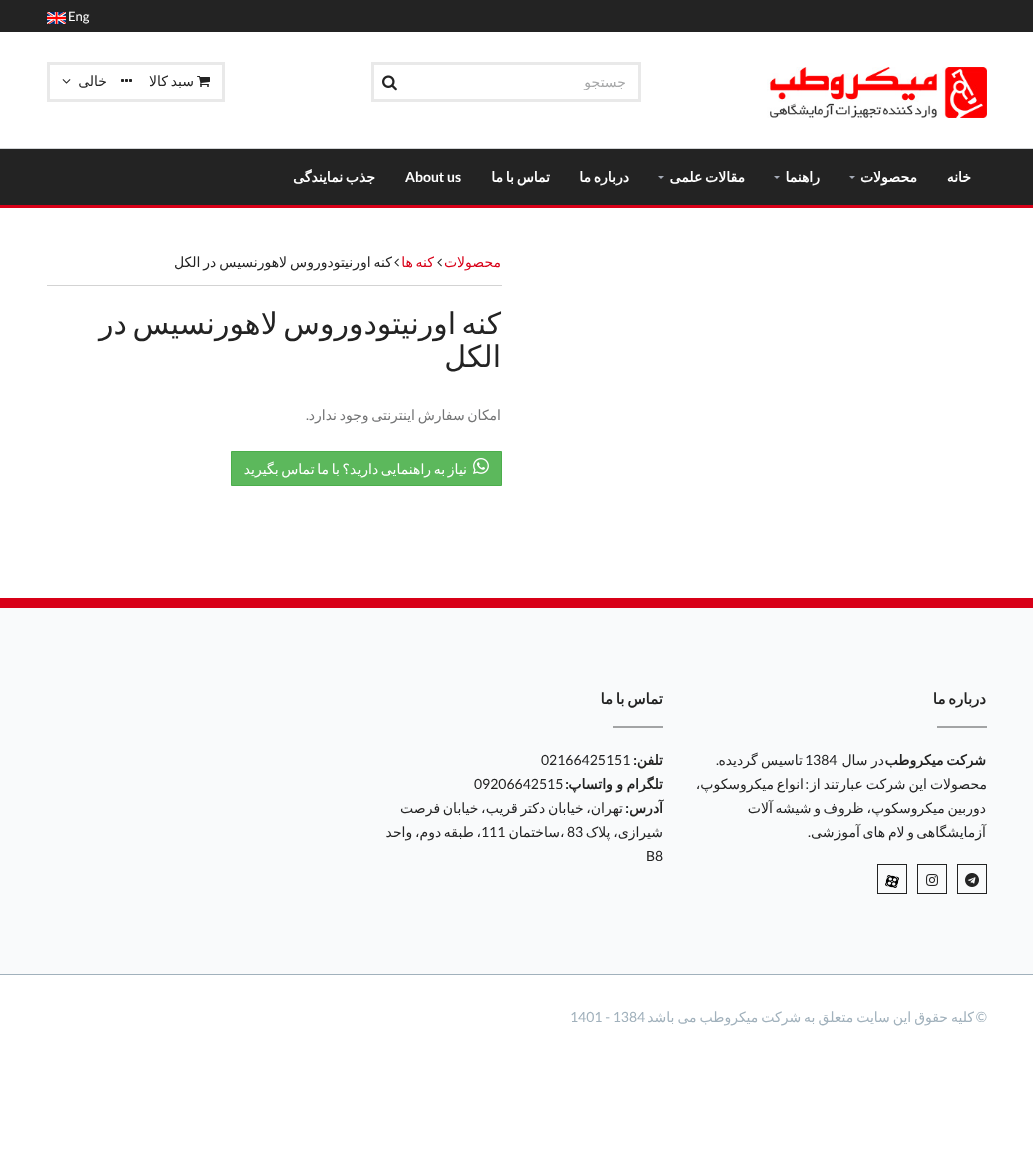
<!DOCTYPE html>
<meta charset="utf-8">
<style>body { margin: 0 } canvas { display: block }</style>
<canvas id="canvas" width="1033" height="1171"></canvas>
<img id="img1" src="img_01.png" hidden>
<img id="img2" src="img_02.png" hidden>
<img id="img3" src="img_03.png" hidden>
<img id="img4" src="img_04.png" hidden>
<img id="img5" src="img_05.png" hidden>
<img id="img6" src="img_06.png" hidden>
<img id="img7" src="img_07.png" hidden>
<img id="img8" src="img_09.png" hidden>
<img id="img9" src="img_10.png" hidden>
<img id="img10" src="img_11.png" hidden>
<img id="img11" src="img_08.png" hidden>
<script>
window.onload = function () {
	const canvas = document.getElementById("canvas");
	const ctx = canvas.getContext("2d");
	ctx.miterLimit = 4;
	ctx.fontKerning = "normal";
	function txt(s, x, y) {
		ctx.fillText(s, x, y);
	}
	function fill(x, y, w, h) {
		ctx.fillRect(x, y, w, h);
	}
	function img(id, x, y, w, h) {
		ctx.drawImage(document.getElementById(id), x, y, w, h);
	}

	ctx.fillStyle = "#FFFFFF";
	fill(0, 0, 1033, 1171);
	ctx.fillStyle = "#232323";
	fill(0, 0, 1033, 32);
	img("img1", 47, 12, 19, 12);
	ctx.fillStyle = "#D80018";
	fill(0, 205, 1033, 3);
	img("img2", 767, 67, 220, 51);
	ctx.strokeStyle = "#E9E9E9";
	ctx.lineWidth = 3;
	ctx.strokeRect(372.5, 63.5, 267, 37);
	img("img3", 382, 75, 15, 16);
	ctx.strokeRect(48.5, 63.5, 175, 37);
	img("img4", 197, 76, 13, 11);
	img("img5", 121, 79, 11, 3);
	img("img6", 62, 79, 9, 5);
	ctx.fillStyle = "#232323";
	fill(0, 149, 1033, 56);
	ctx.fillStyle = "#D3D5D7";
	fill(0, 148, 1033, 1);
	ctx.fillStyle = "#A5ABB7";
	ctx.beginPath();
	ctx.moveTo(849, 176);
	ctx.lineTo(855, 176);
	ctx.lineTo(852, 179);
	ctx.closePath();
	ctx.fill();
	ctx.beginPath();
	ctx.moveTo(774, 176);
	ctx.lineTo(780, 176);
	ctx.lineTo(777, 179);
	ctx.closePath();
	ctx.fill();
	ctx.beginPath();
	ctx.moveTo(658, 176);
	ctx.lineTo(664, 176);
	ctx.lineTo(661, 179);
	ctx.closePath();
	ctx.fill();
	ctx.fillStyle = "#D3D3D3";
	fill(47, 285, 455, 1);
	img("img7", 437, 258, 5, 9);
	img("img7", 394, 258, 5, 9);
	ctx.fillStyle = "#5CB85C";
	ctx.beginPath();
	ctx.rect(231.5, 451.5, 270, 34);
	ctx.fill();
	ctx.strokeStyle = "#4CAE4C";
	ctx.lineWidth = 1;
	ctx.stroke();
	ctx.fillStyle = "#F9FAFB";
	fill(0, 608, 1033, 366);
	ctx.fillStyle = "#D80018";
	fill(0, 598, 1033, 10);
	ctx.fillStyle = "#A3A4A5";
	fill(937, 726, 50, 2);
	ctx.strokeStyle = "#232323";
	ctx.strokeRect(957.5, 864.5, 29, 29);
	img("img8", 965, 873, 14, 14);
	ctx.strokeRect(917.5, 864.5, 29, 29);
	img("img9", 926, 874, 12, 12);
	ctx.strokeRect(877.5, 864.5, 29, 29);
	img("img10", 885, 875, 14, 13);
	fill(613, 726, 50, 2);
	ctx.fillStyle = "#A1B1BC";
	fill(0, 974, 1033, 1);
	ctx.font = "13px Lato";
	ctx.fillStyle = "#FFFFFF";
	txt("Eng", 68, 21);
	ctx.save();
	ctx.beginPath();
	ctx.rect(386, 73, 240, 17);
	ctx.clip();
	ctx.direction = "rtl";
	ctx.font = "14px DejaVu Sans";
	ctx.fillStyle = "#A6A7A8";
	txt("جستجو", 626, 87);
	ctx.restore();
	ctx.wordSpacing = "-1.75px";
	ctx.direction = "rtl";
	ctx.font = "14px DejaVu Sans";
	ctx.fillStyle = "#232323";
	txt("سبد کالا", 194, 86);
	ctx.wordSpacing = "0px";
	txt("خالی", 107, 86);
	ctx.font = "bold 14px DejaVu Sans";
	ctx.fillStyle = "#FFFFFF";
	txt("خانه", 971, 182);
	txt("محصولات", 917, 182);
	txt("راهنما", 820, 182);
	ctx.wordSpacing = "-1.75px";
	txt("مقالات علمی", 745, 182);
	txt("درباره ما", 629, 182);
	txt("تماس با ما", 550, 182);
	ctx.wordSpacing = "0px";
	ctx.direction = "ltr";
	ctx.font = "bold 14px Lato";
	txt("About us", 405, 182);
	ctx.wordSpacing = "-1.75px";
	ctx.direction = "rtl";
	ctx.font = "bold 14px DejaVu Sans";
	txt("جذب نمایندگی", 375, 182);
	ctx.wordSpacing = "0px";
	ctx.font = "14px DejaVu Sans";
	ctx.fillStyle = "#D80018";
	txt("محصولات", 501, 267);
	ctx.wordSpacing = "-1.75px";
	txt("کنه ها", 434, 267);
	ctx.wordSpacing = "-1.5px";
	ctx.fillStyle = "#232323";
	txt("كنه اورنيتودوروس لاهورنسيس در الكل", 392, 267);
	ctx.wordSpacing = "-4px";
	ctx.font = "30px DejaVu Sans";
	txt("كنه اورنيتودوروس لاهورنسيس در", 501, 334);
	ctx.wordSpacing = "0px";
	txt("الكل", 501, 367);
	ctx.wordSpacing = "-1.75px";
	ctx.font = "14px DejaVu Sans";
	ctx.fillStyle = "#737475";
	txt("امکان سفارش اینترنتی وجود ندارد", 501, 420);
	ctx.wordSpacing = "0px";
	ctx.font = "14px Lato";
	txt(".", 309, 420);
	ctx.wordSpacing = "-1.75px";
	ctx.font = "14px DejaVu Sans";
	ctx.fillStyle = "#FFFFFF";
	txt("نیاز به راهنمایی دارید؟ با ما تماس بگیرید", 467, 474);
	img("img11", 473, 458, 16, 16);
	ctx.save();
	ctx.beginPath();
	ctx.rect(693, 688, 294, 40);
	ctx.clip();
	ctx.wordSpacing = "-2px";
	ctx.font = "bold 15px DejaVu Sans";
	ctx.fillStyle = "#232323";
	txt("درباره ما", 986, 704);
	ctx.restore();
	ctx.font = "bold 14px DejaVu Sans";
	ctx.fillStyle = "#232323";
	txt("شرکت میکروطب", 986, 765);
	ctx.wordSpacing = "-1px";
	ctx.font = "14px DejaVu Sans";
	txt("در سال", 884, 765);
	ctx.wordSpacing = "0px";
	ctx.direction = "ltr";
	ctx.font = "14px Lato";
	txt("1384", 805, 765);
	ctx.wordSpacing = "-1px";
	ctx.direction = "rtl";
	ctx.font = "14px DejaVu Sans";
	txt("تاسیس گردیده", 803, 765);
	ctx.wordSpacing = "0px";
	ctx.font = "14px Lato";
	txt(".", 719, 765);
	txt(":", 809, 789);
	ctx.wordSpacing = "-1.5px";
	ctx.font = "14px DejaVu Sans";
	txt("محصولات این شرکت عبارتند از", 987, 789);
	ctx.wordSpacing = "-1.75px";
	txt("انواع میکروسکوپ،", 804, 789);
	txt("دوربین میکروسکوپ، ظروف و شیشه آلات", 986, 813);
	ctx.wordSpacing = "0px";
	txt("آزمایشگاهی", 986, 837);
	ctx.wordSpacing = "-1.75px";
	txt("و لام های آموزشی", 914, 837);
	ctx.wordSpacing = "0px";
	ctx.font = "14px Lato";
	txt(".", 811, 837);
	ctx.save();
	ctx.beginPath();
	ctx.rect(370, 688, 293, 40);
	ctx.clip();
	ctx.wordSpacing = "-2px";
	ctx.font = "bold 15px DejaVu Sans";
	txt("تماس با ما", 663, 704);
	ctx.restore();
	ctx.font = "bold 14px DejaVu Sans";
	txt("تلفن", 663, 765);
	ctx.font = "bold 14px Lato";
	txt(":", 637, 765);
	ctx.direction = "ltr";
	ctx.font = "14px Lato";
	txt("02166425151", 541, 765);
	ctx.wordSpacing = "-1px";
	ctx.direction = "rtl";
	ctx.font = "bold 14px DejaVu Sans";
	txt("تلگرام و واتساپ", 663, 789);
	ctx.wordSpacing = "0px";
	ctx.font = "bold 14px Lato";
	txt(":", 569, 789);
	ctx.direction = "ltr";
	ctx.font = "14px Lato";
	txt("09206642515", 474, 789);
	ctx.direction = "rtl";
	ctx.font = "bold 14px DejaVu Sans";
	txt("آدرس", 663, 813);
	ctx.font = "bold 14px Lato";
	txt(":", 629, 813);
	ctx.wordSpacing = "-1.75px";
	ctx.font = "14px DejaVu Sans";
	txt("تهران، خیابان دکتر قریب، خیابان فرصت", 623, 813);
	txt("شیرازی، پلاک", 663, 837);
	ctx.wordSpacing = "0px";
	ctx.direction = "ltr";
	ctx.font = "14px Lato";
	txt("83", 567, 837);
	ctx.font = "14px DejaVu Sans";
	txt("،", 560, 837);
	ctx.direction = "rtl";
	txt("ساختمان", 560, 837);
	ctx.wordSpacing = "-1.75px";
	txt("، طبقه دوم، واحد", 481, 837);
	ctx.wordSpacing = "0px";
	ctx.direction = "ltr";
	ctx.font = "14px Lato";
	txt("111", 481, 837);
	txt("B8", 646, 861);
	ctx.wordSpacing = "-1.5px";
	ctx.direction = "rtl";
	ctx.font = "14px DejaVu Sans";
	ctx.fillStyle = "#A1B1BC";
	txt("کلیه حقوق این سایت متعلق به شرکت میکروطب می باشد", 974, 1022);
	ctx.wordSpacing = "0px";
	ctx.direction = "ltr";
	ctx.font = "14px Lato";
	txt("1401 - 1384", 570, 1022);
	ctx.direction = "rtl";
	txt("©", 987, 1022);
};
</script>
